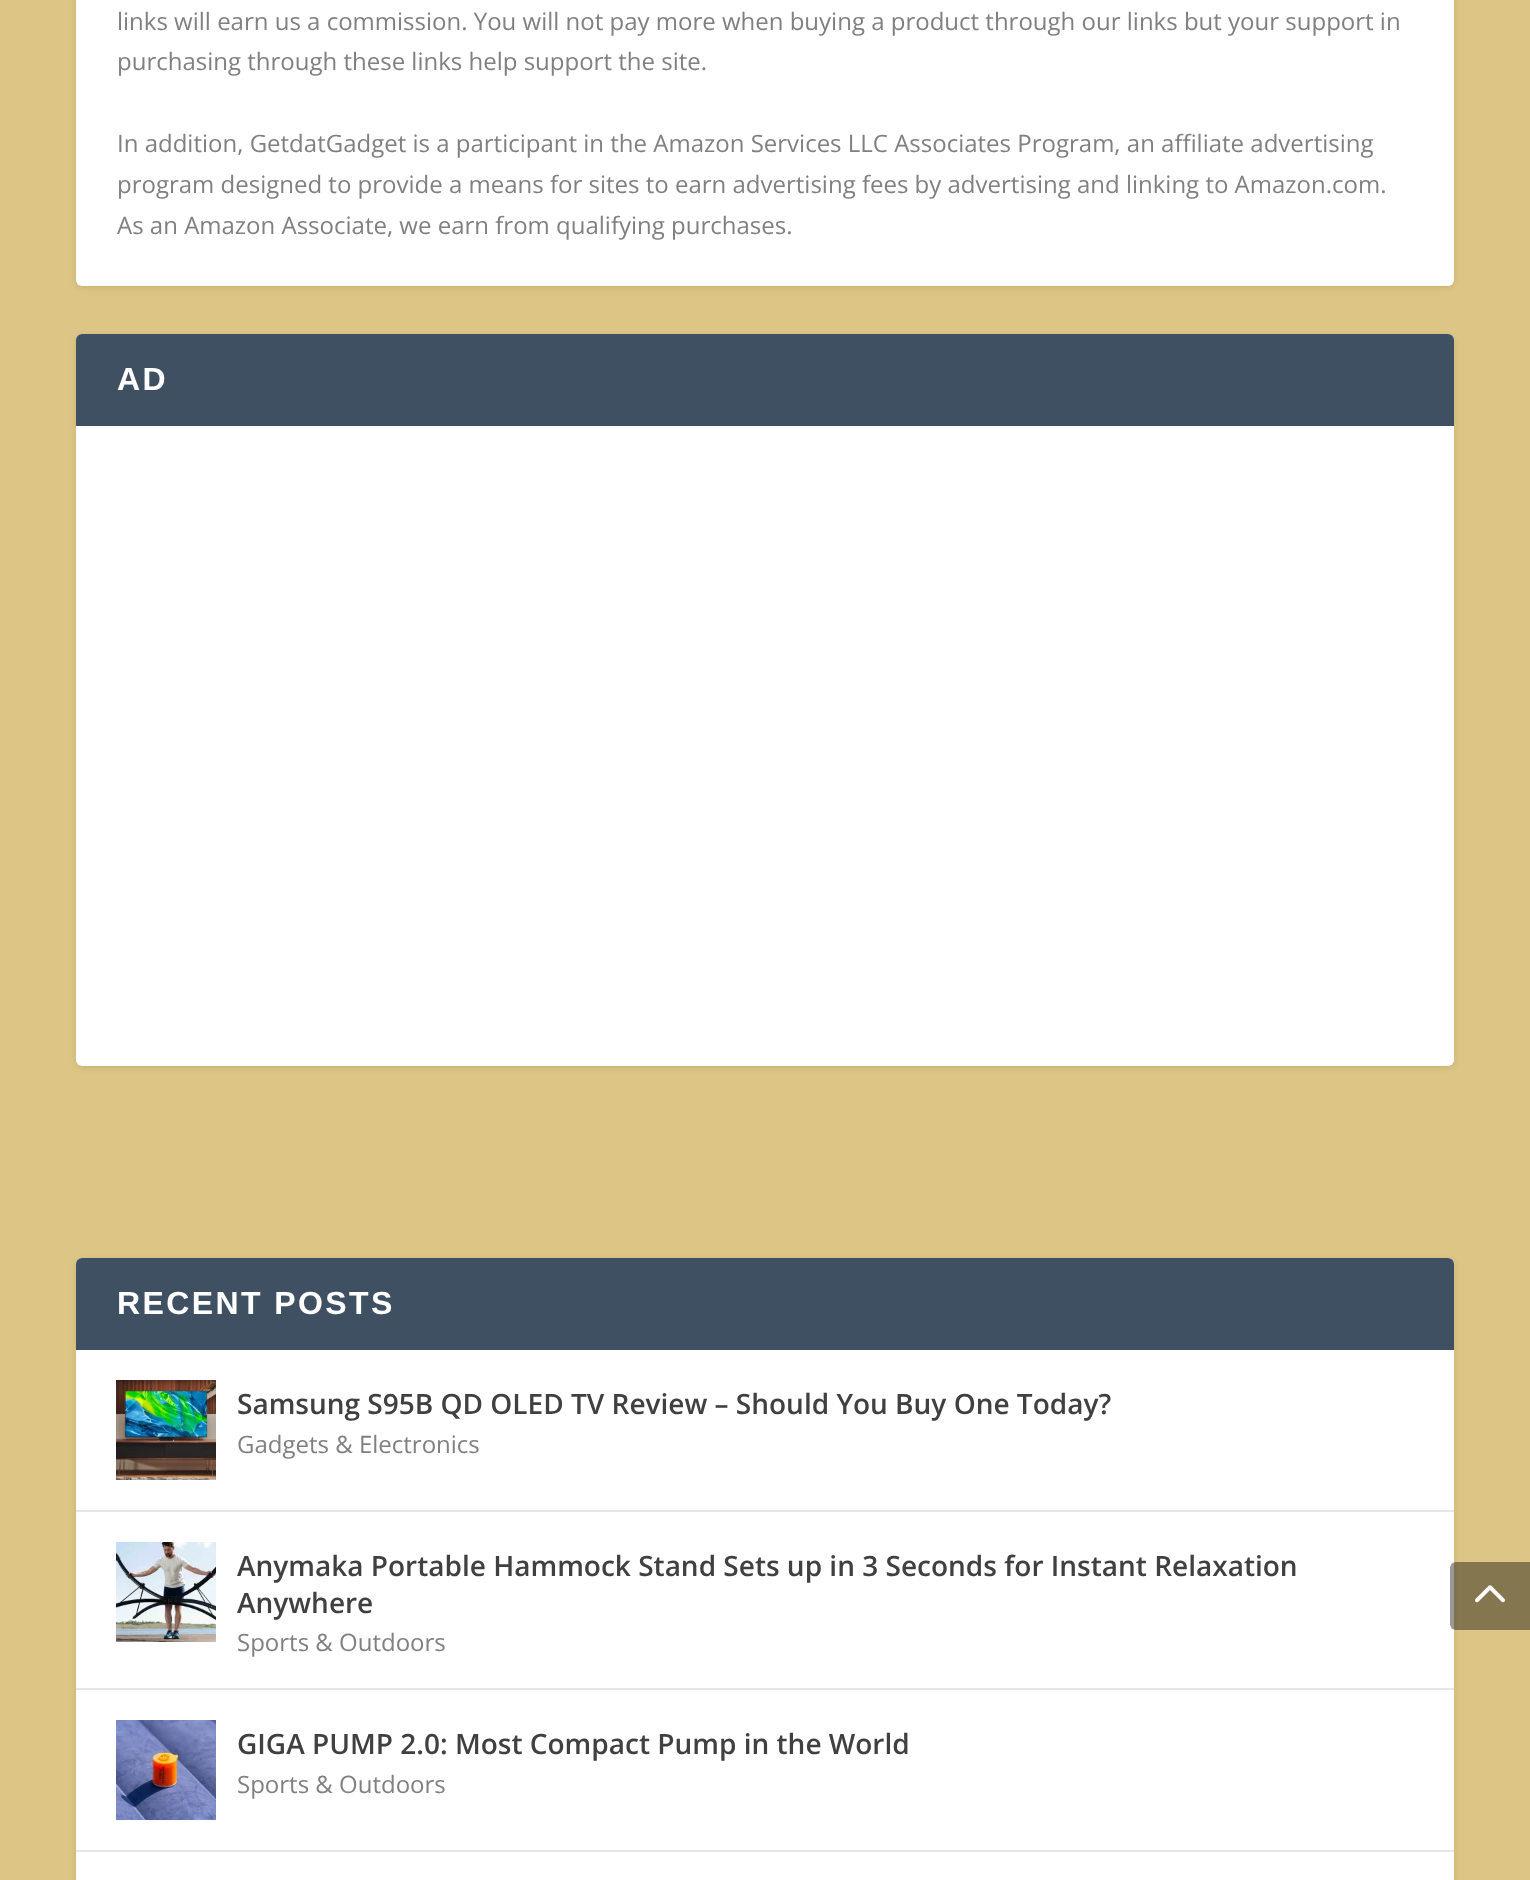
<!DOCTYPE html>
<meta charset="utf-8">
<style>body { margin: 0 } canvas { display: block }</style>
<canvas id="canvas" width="1530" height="1880"></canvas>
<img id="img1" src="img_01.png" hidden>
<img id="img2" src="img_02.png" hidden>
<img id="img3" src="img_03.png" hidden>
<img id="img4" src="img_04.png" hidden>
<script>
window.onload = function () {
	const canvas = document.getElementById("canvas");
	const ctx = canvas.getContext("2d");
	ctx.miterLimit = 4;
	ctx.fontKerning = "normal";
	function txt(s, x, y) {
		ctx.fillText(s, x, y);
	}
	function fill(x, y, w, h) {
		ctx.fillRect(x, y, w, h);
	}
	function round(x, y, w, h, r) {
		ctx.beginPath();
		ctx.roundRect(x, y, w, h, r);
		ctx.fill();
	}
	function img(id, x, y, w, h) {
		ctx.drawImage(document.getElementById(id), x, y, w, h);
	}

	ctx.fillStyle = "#DDC685";
	fill(0, 0, 1530, 1880);
	ctx.fillStyle = "rgba(0, 0, 0, 0.1)";
	ctx.filter = "blur(3px)";
	ctx.beginPath();
	ctx.roundRect(76, -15, 1378, 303, 6);
	ctx.fill();
	ctx.filter = "none";
	ctx.fillStyle = "#FFFFFF";
	round(76, -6, 1378, 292, 6);
	ctx.fillStyle = "rgba(0, 0, 0, 0.1)";
	ctx.filter = "blur(3px)";
	ctx.beginPath();
	ctx.roundRect(76, 336, 1378, 732, 6);
	ctx.fill();
	ctx.filter = "none";
	ctx.fillStyle = "#FFFFFF";
	round(76, 334, 1378, 732, 6);
	ctx.fillStyle = "#3E5062";
	ctx.beginPath();
	ctx.roundRect(76, 334, 1378, 92, [6, 6, 0, 0]);
	ctx.fill();
	ctx.fillStyle = "rgba(0, 0, 0, 0.1)";
	ctx.filter = "blur(3px)";
	ctx.beginPath();
	ctx.roundRect(76, 1260, 1378, 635, 6);
	ctx.fill();
	ctx.filter = "none";
	ctx.fillStyle = "#FFFFFF";
	round(76, 1258, 1378, 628, 6);
	ctx.fillStyle = "#3E5062";
	ctx.beginPath();
	ctx.roundRect(76, 1258, 1378, 92, [6, 6, 0, 0]);
	ctx.fill();
	ctx.fillStyle = "#E6E6E6";
	fill(76, 1510, 1378, 2);
	img("img1", 116, 1380, 100, 100);
	fill(76, 1688, 1378, 2);
	img("img2", 116, 1542, 100, 100);
	fill(76, 1850, 1378, 2);
	img("img3", 116, 1720, 100, 100);
	ctx.fillStyle = "rgba(0, 0, 0, 0.4)";
	ctx.beginPath();
	ctx.roundRect(1450, 1562, 80, 68, [6, 0, 0, 6]);
	ctx.fill();
	img("img4", 1475, 1585, 30, 18);
	ctx.font = "24px Open Sans";
	ctx.fillStyle = "#808080";
	txt("links will earn us a commission. You will not pay more when buying a product through our links but your support in", 117, 30);
	txt("purchasing through these links help support the site.", 117, 70);
	txt("In addition, GetdatGadget is a participant in the Amazon Services LLC Associates Program, an affiliate advertising", 117, 152);
	txt("program designed to provide a means for sites to earn advertising fees by advertising and linking to Amazon.com.", 117, 193);
	txt("As an Amazon Associate, we earn from qualifying purchases.", 117, 234);
	ctx.letterSpacing = "2.4px";
	ctx.font = "bold 32px Liberation Sans";
	ctx.fillStyle = "#FFFFFF";
	txt("AD", 117, 390);
	txt("RECENT POSTS", 117, 1314);
	ctx.letterSpacing = "0px";
	ctx.font = "600 28px Open Sans";
	ctx.fillStyle = "#404040";
	txt("Samsung S95B QD OLED TV Review – Should You Buy One Today?", 237, 1414);
	ctx.font = "24px Open Sans";
	ctx.fillStyle = "#808080";
	txt("Gadgets & Electronics", 237, 1453);
	ctx.font = "600 28px Open Sans";
	ctx.fillStyle = "#404040";
	txt("Anymaka Portable Hammock Stand Sets up in 3 Seconds for Instant Relaxation", 237, 1576);
	txt("Anywhere", 237, 1613);
	ctx.font = "24px Open Sans";
	ctx.fillStyle = "#808080";
	txt("Sports & Outdoors", 237, 1651);
	ctx.font = "600 28px Open Sans";
	ctx.fillStyle = "#404040";
	txt("GIGA PUMP 2.0: Most Compact Pump in the World", 237, 1754);
	ctx.font = "24px Open Sans";
	ctx.fillStyle = "#808080";
	txt("Sports & Outdoors", 237, 1793);
};
</script>
